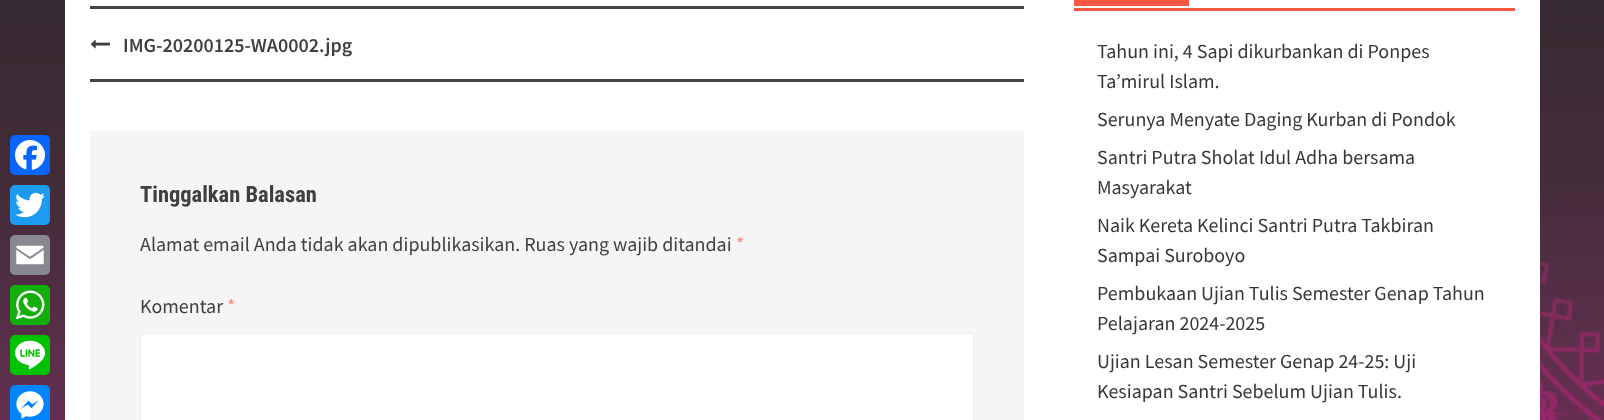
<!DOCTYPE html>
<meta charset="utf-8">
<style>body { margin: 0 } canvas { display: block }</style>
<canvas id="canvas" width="1604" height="420"></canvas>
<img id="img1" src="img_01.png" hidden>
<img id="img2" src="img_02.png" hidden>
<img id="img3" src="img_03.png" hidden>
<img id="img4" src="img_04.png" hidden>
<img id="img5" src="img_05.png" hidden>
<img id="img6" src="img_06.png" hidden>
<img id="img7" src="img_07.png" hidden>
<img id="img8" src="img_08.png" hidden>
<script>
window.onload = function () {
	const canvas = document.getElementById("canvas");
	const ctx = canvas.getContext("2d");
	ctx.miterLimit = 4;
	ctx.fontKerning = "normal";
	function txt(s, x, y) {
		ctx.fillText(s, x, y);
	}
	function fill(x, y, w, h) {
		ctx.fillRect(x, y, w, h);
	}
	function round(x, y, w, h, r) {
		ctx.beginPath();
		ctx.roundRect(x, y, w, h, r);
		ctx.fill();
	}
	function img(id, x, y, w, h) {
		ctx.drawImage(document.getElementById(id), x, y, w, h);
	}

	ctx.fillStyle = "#FFFFFF";
	fill(0, 0, 1604, 420);
	img("img1", 0, 0, 1604, 420);
	ctx.fillStyle = "#0866FF";
	round(10, 135, 40, 40, 5);
	img("img2", 15, 140, 30, 30);
	ctx.fillStyle = "#1D9BF0";
	round(10, 185, 40, 40, 5);
	img("img3", 15, 192, 30, 26);
	ctx.fillStyle = "#888990";
	round(10, 235, 40, 40, 5);
	img("img4", 16, 245, 28, 20);
	ctx.fillStyle = "#12AF0A";
	round(10, 285, 40, 40, 5);
	img("img5", 15, 290, 30, 30);
	ctx.fillStyle = "#00C300";
	round(10, 335, 40, 40, 5);
	img("img6", 15, 340, 30, 30);
	ctx.fillStyle = "#0084FF";
	round(10, 385, 40, 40, 5);
	img("img7", 16, 391, 28, 28);
	ctx.fillStyle = "#FFFFFF";
	fill(65, 0, 1475, 420);
	ctx.fillStyle = "#444444";
	fill(90, 6, 934, 3);
	fill(90, 79, 934, 3);
	img("img8", 90, 39, 20, 10);
	ctx.fillStyle = "#F5F5F5";
	fill(90, 131, 934, 289);
	ctx.fillStyle = "#FFFFFF";
	round(141, 334, 832, 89, 2.5);
	ctx.beginPath();
	ctx.roundRect(140.5, 333.5, 833, 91, 3.5);
	ctx.strokeStyle = "#EEEEEE";
	ctx.stroke();
	ctx.fillStyle = "#FA5742";
	fill(1074, 8, 441, 3);
	fill(1074, 0, 115, 6);
	ctx.font = "600 20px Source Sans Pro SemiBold";
	ctx.fillStyle = "#404040";
	txt("IMG-20200125-WA0002.jpg", 123, 52);
	ctx.font = "bold 22.5px Roboto Condensed";
	txt("Tinggalkan Balasan", 140, 202);
	ctx.font = "20px Source Sans Pro";
	txt("Alamat email Anda tidak akan dipublikasikan. Ruas yang wajib ditandai", 140, 251);
	ctx.fillStyle = "#FF8778";
	txt("*", 736, 251);
	ctx.fillStyle = "#404040";
	txt("Komentar", 140, 313);
	ctx.fillStyle = "#FF8778";
	txt("*", 227, 313);
	ctx.fillStyle = "#383732";
	txt("Tahun ini, 4 Sapi dikurbankan di Ponpes", 1097, 58);
	txt("Ta’mirul Islam.", 1097, 88);
	txt("Serunya Menyate Daging Kurban di Pondok", 1097, 126);
	txt("Santri Putra Sholat Idul Adha bersama", 1097, 164);
	txt("Masyarakat", 1097, 194);
	txt("Naik Kereta Kelinci Santri Putra Takbiran", 1097, 232);
	txt("Sampai Suroboyo", 1097, 262);
	txt("Pembukaan Ujian Tulis Semester Genap Tahun", 1097, 300);
	txt("Pelajaran 2024-2025", 1097, 330);
	txt("Ujian Lesan Semester Genap 24-25: Uji", 1097, 368);
	txt("Kesiapan Santri Sebelum Ujian Tulis.", 1097, 398);
};
</script>
